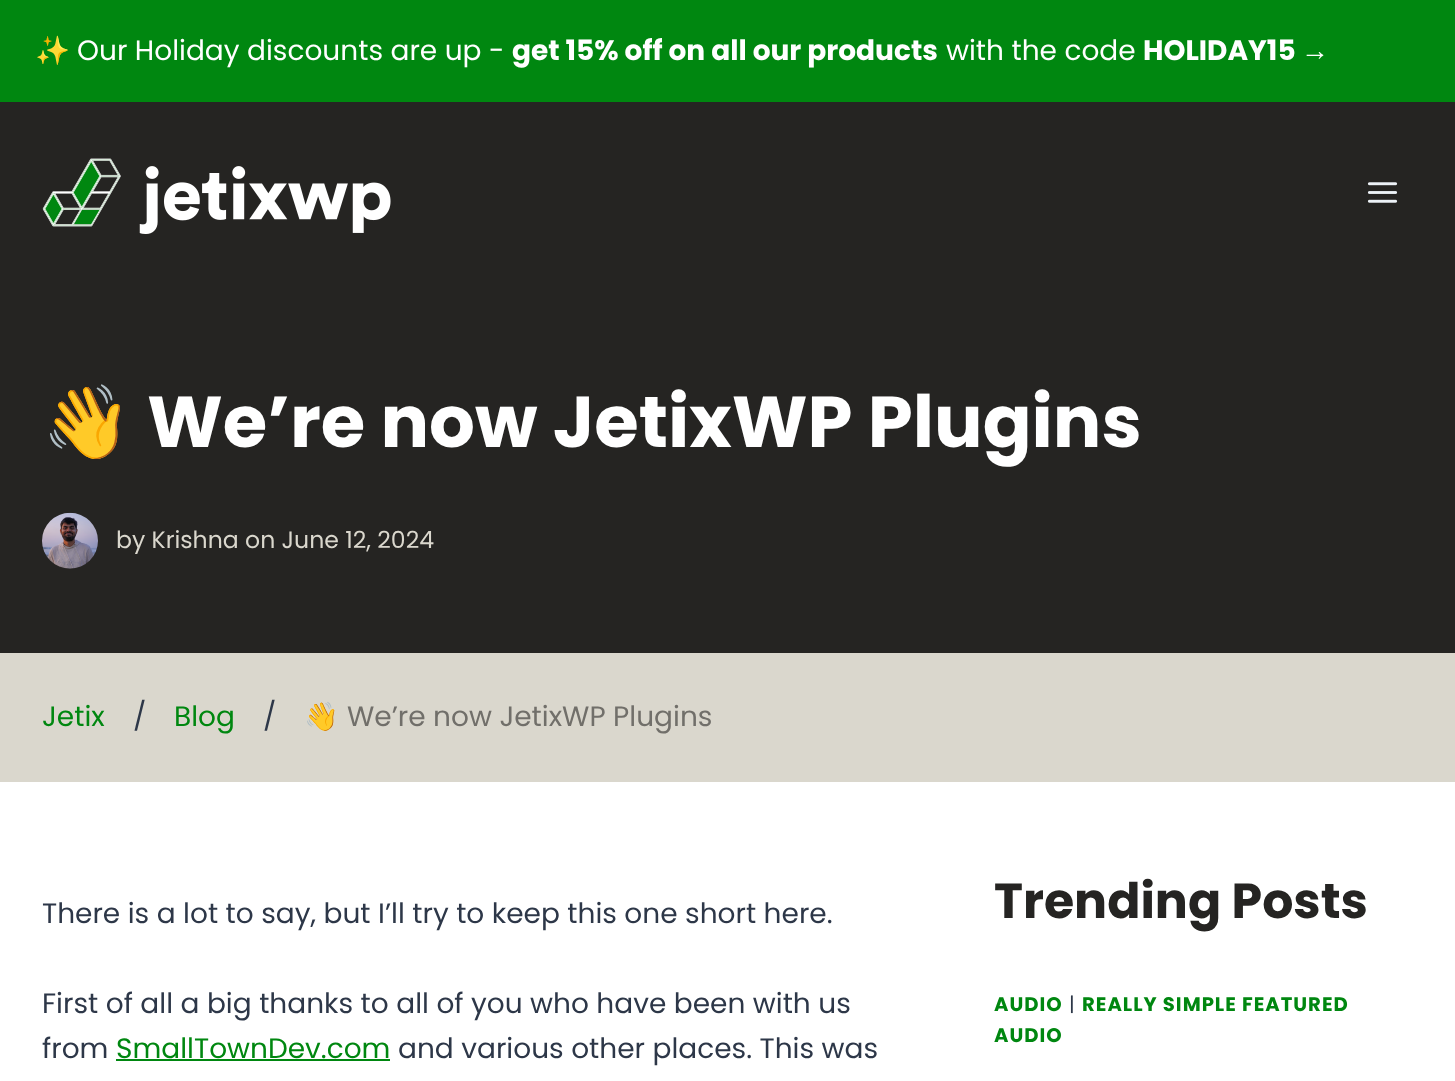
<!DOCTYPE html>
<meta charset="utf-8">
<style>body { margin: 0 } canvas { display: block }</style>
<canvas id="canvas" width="1455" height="1081"></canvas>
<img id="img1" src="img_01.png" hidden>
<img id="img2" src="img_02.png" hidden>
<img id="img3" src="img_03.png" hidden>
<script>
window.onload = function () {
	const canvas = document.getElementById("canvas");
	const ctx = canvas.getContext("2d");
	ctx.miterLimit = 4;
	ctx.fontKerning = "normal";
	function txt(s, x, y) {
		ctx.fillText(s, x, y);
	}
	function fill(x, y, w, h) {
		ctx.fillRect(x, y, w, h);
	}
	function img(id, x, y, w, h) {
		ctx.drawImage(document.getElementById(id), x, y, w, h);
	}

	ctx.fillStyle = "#FFFFFF";
	fill(0, 0, 1455, 1081);
	ctx.fillStyle = "#008710";
	fill(0, 0, 1455, 102);
	ctx.fillStyle = "#252422";
	fill(0, 102, 1455, 551);
	img("img1", 42, 158, 349, 76);
	img("img2", 1367, 182, 31, 21);
	img("img3", 42, 512, 56, 57);
	ctx.fillStyle = "#DAD7CD";
	fill(0, 653, 1455, 129);
	ctx.fillStyle = "#008710";
	fill(116, 1059, 274, 2);
	ctx.font = "28px Noto Color Emoji";
	ctx.fillStyle = "#FFFFFF";
	txt("✨", 35, 60);
	ctx.font = "28px Poppins";
	txt("Our Holiday discounts are up -", 77, 60);
	ctx.font = "bold 28px Poppins";
	txt("get 15% off on all our products", 512, 60);
	ctx.font = "28px Poppins";
	txt("with the code", 946, 60);
	ctx.font = "bold 28px Poppins";
	txt("HOLIDAY15", 1143, 60);
	ctx.font = "bold 28px Liberation Sans";
	txt("→", 1301, 60);
	ctx.font = "bold 72.1px Noto Color Emoji";
	txt("👋", 42, 447);
	ctx.font = "bold 72.1px Poppins";
	txt("We’re now JetixWP Plugins", 147, 447);
	ctx.font = "23.6px Poppins";
	ctx.fillStyle = "#DAD7CD";
	txt("by Krishna on June 12, 2024", 116, 548);
	ctx.font = "28px Poppins";
	ctx.fillStyle = "#008710";
	txt("Jetix", 42, 726);
	ctx.fillStyle = "#2D3748";
	txt("/", 133, 726);
	ctx.fillStyle = "#008710";
	txt("Blog", 174, 726);
	ctx.fillStyle = "#2D3748";
	txt("/", 263, 726);
	ctx.font = "28px Noto Color Emoji";
	ctx.fillStyle = "#716F6A";
	txt("👋", 304, 726);
	ctx.font = "28px Poppins";
	txt("We’re now JetixWP Plugins", 347, 726);
	ctx.fillStyle = "#2D3748";
	txt("There is a lot to say, but I’ll try to keep this one short here.", 42, 923);
	txt("First of all a big thanks to all of you who have been with us", 42, 1013);
	txt("from", 42, 1058);
	ctx.fillStyle = "#008710";
	txt("SmallTownDev.com", 116, 1058);
	ctx.fillStyle = "#2D3748";
	txt("and various other places. This was", 398, 1058);
	ctx.font = "bold 49px Poppins";
	ctx.fillStyle = "#252422";
	txt("Trending Posts", 994, 918);
	ctx.letterSpacing = "1px";
	ctx.font = "bold 19.6px Poppins";
	ctx.fillStyle = "#008710";
	txt("AUDIO", 994, 1011);
	ctx.font = "19.6px Poppins";
	ctx.fillStyle = "#2D3748";
	txt("|", 1069, 1011);
	ctx.font = "bold 19.6px Poppins";
	ctx.fillStyle = "#008710";
	txt("REALLY SIMPLE FEATURED", 1082, 1011);
	txt("AUDIO", 994, 1042);
};
</script>
